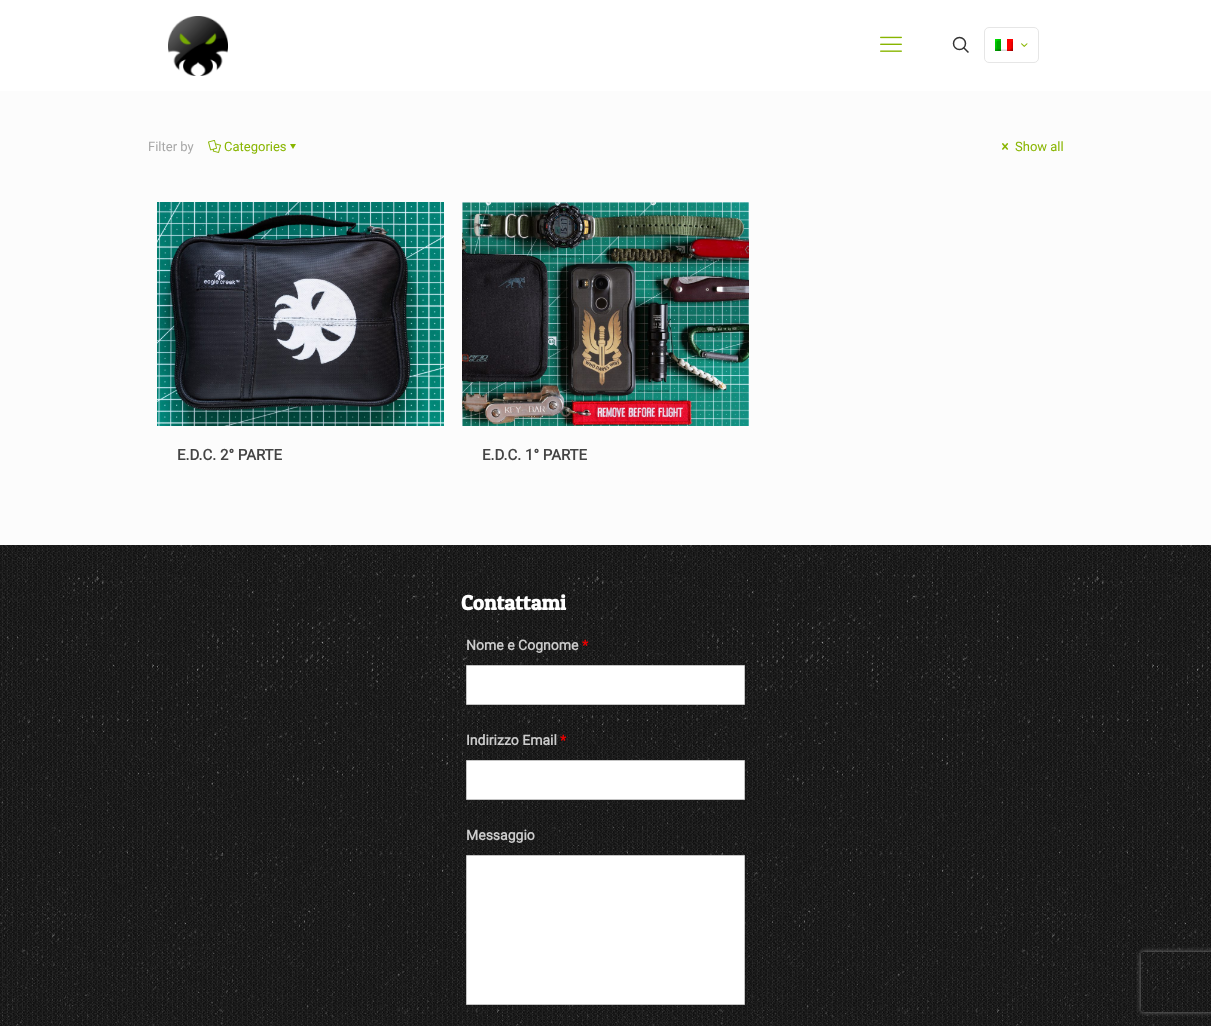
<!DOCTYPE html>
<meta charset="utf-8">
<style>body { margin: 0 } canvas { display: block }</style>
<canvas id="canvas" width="1211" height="1026"></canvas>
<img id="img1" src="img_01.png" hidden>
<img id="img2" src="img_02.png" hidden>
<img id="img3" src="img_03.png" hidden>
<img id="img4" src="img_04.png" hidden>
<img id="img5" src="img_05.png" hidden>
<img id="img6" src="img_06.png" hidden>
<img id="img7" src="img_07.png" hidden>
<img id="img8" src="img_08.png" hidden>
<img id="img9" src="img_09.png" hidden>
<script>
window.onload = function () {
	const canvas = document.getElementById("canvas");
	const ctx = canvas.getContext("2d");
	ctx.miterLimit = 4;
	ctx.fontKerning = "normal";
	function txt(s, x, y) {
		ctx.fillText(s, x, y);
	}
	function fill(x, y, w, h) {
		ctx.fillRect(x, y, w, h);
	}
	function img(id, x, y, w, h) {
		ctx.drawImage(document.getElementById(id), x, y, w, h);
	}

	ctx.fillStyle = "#FCFCFC";
	fill(0, 0, 1211, 1026);
	ctx.fillStyle = "#FFFFFF";
	fill(0, 0, 1211, 91);
	img("img1", 168, 16, 60, 60);
	img("img2", 880, 36, 22, 16);
	ctx.beginPath();
	ctx.arc(959.5, 43.5, 6, 0, Math.PI * 2);
	ctx.strokeStyle = "#333333";
	ctx.lineWidth = 1.5;
	ctx.stroke();
	ctx.beginPath();
	ctx.moveTo(963.5, 47.5);
	ctx.lineTo(968.5, 52.5);
	ctx.stroke();
	ctx.beginPath();
	ctx.roundRect(984.5, 27.5, 54, 35, 4.5);
	ctx.strokeStyle = "#E6E6E6";
	ctx.lineWidth = 1;
	ctx.stroke();
	img("img3", 995, 39, 18, 12);
	img("img4", 1021, 43, 7, 4);
	img("img5", 208, 140, 13, 13);
	ctx.fillStyle = "#88B500";
	ctx.beginPath();
	ctx.moveTo(296, 144);
	ctx.lineTo(293, 149);
	ctx.lineTo(290, 144);
	ctx.closePath();
	ctx.fill();
	img("img6", 1002, 143, 7, 7);
	img("img7", 157, 202, 287, 224);
	img("img8", 462, 202, 287, 224);
	img("img9", 0, 545, 1211, 481);
	ctx.fillStyle = "#FFFFFF";
	ctx.beginPath();
	ctx.rect(466.5, 665.5, 278, 39);
	ctx.fill();
	ctx.strokeStyle = "#C4C4C4";
	ctx.stroke();
	ctx.beginPath();
	ctx.rect(466.5, 760.5, 278, 39);
	ctx.fill();
	ctx.stroke();
	ctx.beginPath();
	ctx.rect(466.5, 855.5, 278, 149);
	ctx.fill();
	ctx.stroke();
	ctx.save();
	ctx.beginPath();
	ctx.moveTo(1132, 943);
	ctx.lineTo(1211, 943);
	ctx.lineTo(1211, 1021);
	ctx.lineTo(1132, 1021);
	ctx.closePath();
	ctx.moveTo(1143, 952);
	ctx.lineTo(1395, 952);
	ctx.bezierCurveTo(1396, 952, 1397, 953, 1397, 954);
	ctx.lineTo(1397, 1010);
	ctx.bezierCurveTo(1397, 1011, 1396, 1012, 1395, 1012);
	ctx.lineTo(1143, 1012);
	ctx.bezierCurveTo(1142, 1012, 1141, 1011, 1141, 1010);
	ctx.lineTo(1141, 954);
	ctx.bezierCurveTo(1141, 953, 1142, 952, 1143, 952);
	ctx.closePath();
	ctx.clip("evenodd");
	ctx.fillStyle = "#808080";
	ctx.filter = "blur(2.5px)";
	ctx.beginPath();
	ctx.roundRect(1141, 952, 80, 60, 2);
	ctx.fill();
	ctx.filter = "none";
	ctx.restore();
	ctx.font = "13px Roboto";
	ctx.fillStyle = "#A8A8A8";
	txt("Filter by", 148, 151);
	ctx.fillStyle = "#88B500";
	txt("Categories", 224, 151);
	txt("Show all", 1015, 151);
	ctx.font = "bold 15px Roboto";
	ctx.fillStyle = "#444444";
	txt("E.D.C. 2° PARTE", 177, 460);
	txt("E.D.C. 1° PARTE", 482, 460);
	ctx.font = "bold 21px Patua One";
	ctx.fillStyle = "#FFFFFF";
	txt("Contattami", 461, 610);
	ctx.font = "bold 14px Roboto";
	ctx.fillStyle = "#CCCCCC";
	txt("Nome e Cognome", 466, 650);
	ctx.fillStyle = "#E80000";
	txt("*", 582, 650);
	ctx.fillStyle = "#CCCCCC";
	txt("Indirizzo Email", 466, 745);
	ctx.fillStyle = "#E80000";
	txt("*", 560, 745);
	ctx.fillStyle = "#CCCCCC";
	txt("Messaggio", 466, 840);
};
</script>
